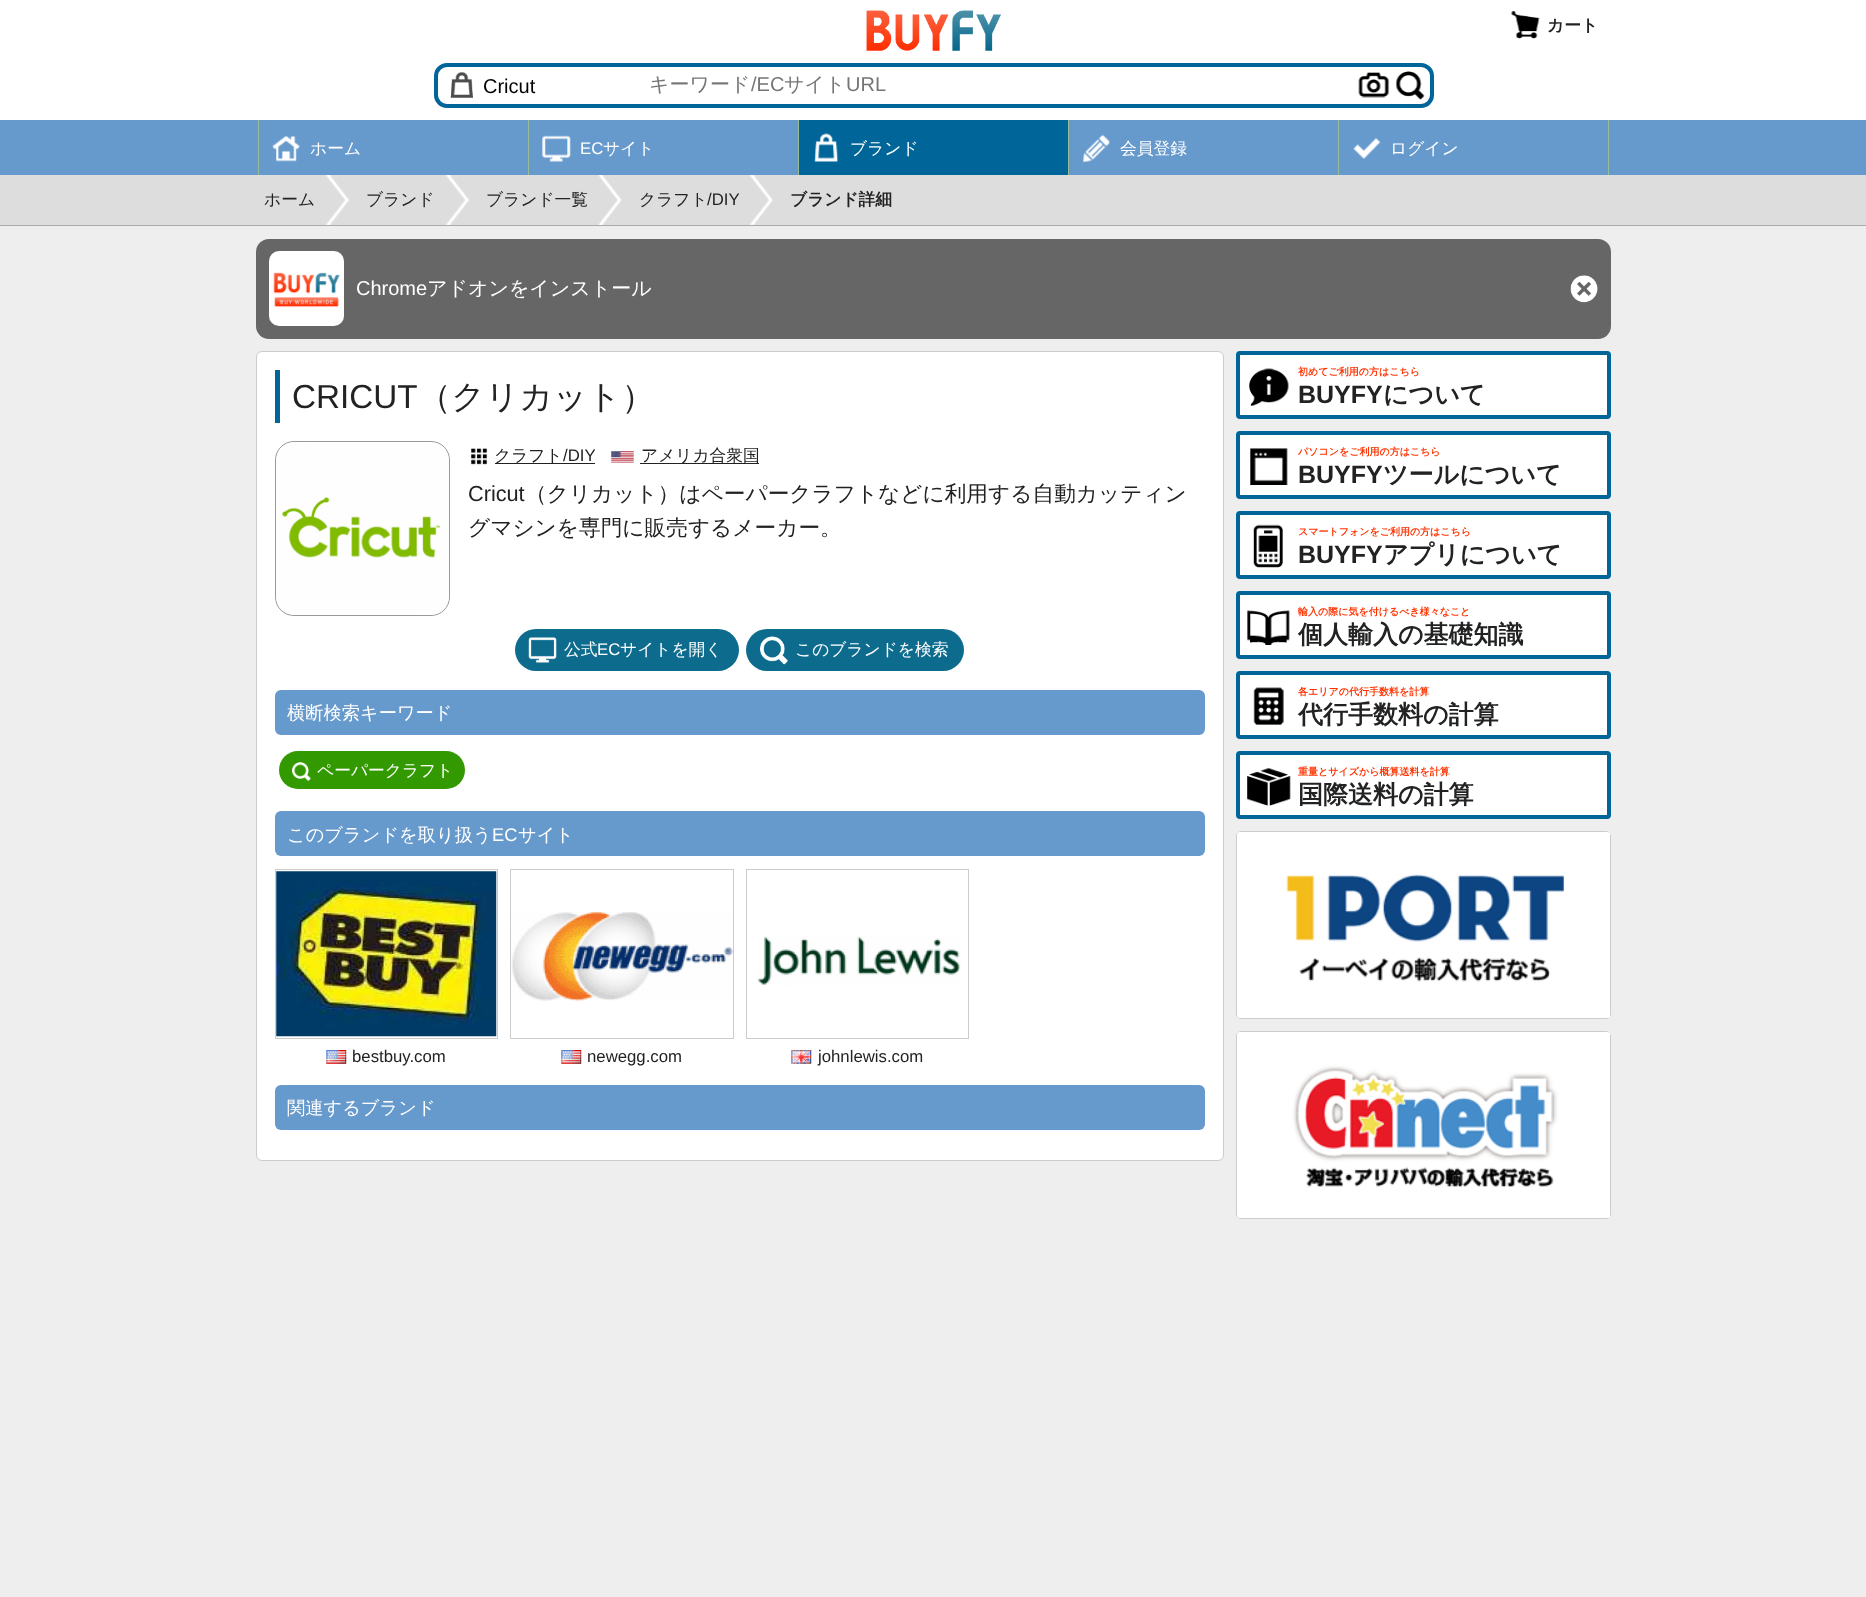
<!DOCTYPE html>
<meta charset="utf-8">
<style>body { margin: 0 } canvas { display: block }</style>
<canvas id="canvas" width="1866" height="1597"></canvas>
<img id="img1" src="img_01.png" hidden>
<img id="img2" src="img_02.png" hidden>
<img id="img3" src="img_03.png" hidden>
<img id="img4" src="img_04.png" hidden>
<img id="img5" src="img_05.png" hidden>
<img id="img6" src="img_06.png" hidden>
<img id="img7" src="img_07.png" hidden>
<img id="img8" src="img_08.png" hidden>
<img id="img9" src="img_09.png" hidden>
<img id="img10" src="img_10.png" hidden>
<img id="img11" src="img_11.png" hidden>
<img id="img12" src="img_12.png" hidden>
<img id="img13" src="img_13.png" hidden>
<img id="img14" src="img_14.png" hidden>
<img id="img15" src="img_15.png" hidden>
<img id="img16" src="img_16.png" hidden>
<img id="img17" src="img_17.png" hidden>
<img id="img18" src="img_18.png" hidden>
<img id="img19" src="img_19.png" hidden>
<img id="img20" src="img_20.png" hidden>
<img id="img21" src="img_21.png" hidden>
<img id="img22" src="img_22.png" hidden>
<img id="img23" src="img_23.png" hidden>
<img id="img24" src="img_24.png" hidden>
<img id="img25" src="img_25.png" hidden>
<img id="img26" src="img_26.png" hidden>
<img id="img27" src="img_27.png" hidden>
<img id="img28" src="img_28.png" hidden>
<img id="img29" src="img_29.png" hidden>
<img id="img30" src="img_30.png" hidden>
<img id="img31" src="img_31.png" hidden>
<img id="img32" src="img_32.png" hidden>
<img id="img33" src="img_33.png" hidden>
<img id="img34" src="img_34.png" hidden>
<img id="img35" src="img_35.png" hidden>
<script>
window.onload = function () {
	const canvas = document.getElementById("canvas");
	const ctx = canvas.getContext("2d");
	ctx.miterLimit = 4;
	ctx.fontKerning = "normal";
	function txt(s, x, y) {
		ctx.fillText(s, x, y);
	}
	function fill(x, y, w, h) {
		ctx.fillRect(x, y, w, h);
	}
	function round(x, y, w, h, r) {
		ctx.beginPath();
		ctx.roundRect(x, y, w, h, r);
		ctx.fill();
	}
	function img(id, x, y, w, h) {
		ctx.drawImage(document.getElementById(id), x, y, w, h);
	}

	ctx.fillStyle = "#EEEEEE";
	fill(0, 0, 1866, 1597);
	ctx.fillStyle = "#FFFFFF";
	fill(0, 0, 1866, 120);
	img("img1", 866, 10, 135, 41);
	img("img2", 1511, 11, 29, 28);
	ctx.beginPath();
	ctx.roundRect(436, 65, 996, 41, 11);
	ctx.strokeStyle = "#006699";
	ctx.lineWidth = 4;
	ctx.stroke();
	img("img3", 450, 72, 23, 26);
	img("img4", 1358, 72, 32, 26);
	img("img5", 1395, 71, 30, 29);
	ctx.fillStyle = "#6699CC";
	fill(0, 120, 1866, 55);
	ctx.fillStyle = "#98BC95";
	fill(258, 120, 1, 55);
	fill(528, 120, 1, 55);
	img("img6", 272, 135, 28, 27);
	fill(798, 120, 1, 55);
	img("img7", 542, 135, 29, 27);
	fill(1068, 120, 1, 55);
	ctx.fillStyle = "#006699";
	fill(799, 120, 269, 55);
	img("img8", 814, 133, 25, 29);
	ctx.fillStyle = "#98BC95";
	fill(1338, 120, 1, 55);
	img("img9", 1083, 135, 27, 28);
	fill(1608, 120, 1, 55);
	img("img10", 1353, 137, 28, 22);
	ctx.fillStyle = "#DDDDDD";
	fill(0, 175, 1866, 50);
	ctx.fillStyle = "#AAAAAA";
	fill(0, 225, 1866, 1);
	img("img11", 326, 175, 23, 50);
	img("img12", 446, 175, 23, 50);
	img("img13", 598, 175, 24, 50);
	img("img14", 750, 175, 23, 50);
	ctx.fillStyle = "#666666";
	round(256, 239, 1355, 100, 13);
	ctx.fillStyle = "#FFFFFF";
	round(269, 251, 75, 75, 10);
	img("img15", 273, 272, 67, 36);
	img("img16", 1570, 275, 28, 28);
	ctx.beginPath();
	ctx.roundRect(256.5, 351.5, 967, 809, 5.5);
	ctx.fill();
	ctx.strokeStyle = "#CCCCCC";
	ctx.lineWidth = 1;
	ctx.stroke();
	ctx.fillStyle = "#006699";
	fill(275, 370, 5, 53);
	ctx.beginPath();
	ctx.roundRect(275.5, 441.5, 174, 174, 18.5);
	ctx.strokeStyle = "#999999";
	ctx.stroke();
	img("img17", 276, 442, 173, 173);
	img("img18", 471, 448, 17, 17);
	ctx.fillStyle = "#222222";
	fill(495, 463, 100, 1);
	img("img19", 611, 451, 23, 12);
	fill(640, 463, 119, 1);
	ctx.fillStyle = "#0D6C8E";
	round(515, 629, 224, 42, 21);
	img("img20", 528, 637, 29, 26);
	round(746, 629, 218, 42, 21);
	img("img21", 760, 636, 28, 29);
	ctx.fillStyle = "#6699CC";
	round(275, 690, 930, 45, 6);
	ctx.fillStyle = "#339900";
	round(279, 751, 186, 38, 19);
	img("img22", 292, 762, 19, 20);
	ctx.fillStyle = "#6699CC";
	round(275, 811, 930, 45, 6);
	img("img23", 276, 871, 221, 166);
	ctx.strokeStyle = "#CCCCCC";
	ctx.strokeRect(275.5, 869.5, 222, 169);
	img("img24", 326, 1050, 21, 14);
	img("img25", 511, 911, 222, 90);
	ctx.strokeRect(510.5, 869.5, 223, 169);
	img("img24", 561, 1050, 21, 14);
	img("img26", 757, 936, 204, 50);
	ctx.strokeRect(746.5, 869.5, 222, 169);
	img("img27", 791, 1050, 21, 14);
	round(275, 1085, 930, 45, 6);
	ctx.fillStyle = "#FFFFFF";
	ctx.beginPath();
	ctx.roundRect(1238, 353, 371, 64, 2);
	ctx.fill();
	ctx.strokeStyle = "#006699";
	ctx.lineWidth = 4;
	ctx.stroke();
	img("img28", 1249, 368, 40, 38);
	ctx.beginPath();
	ctx.roundRect(1238, 433, 371, 64, 2);
	ctx.fill();
	ctx.stroke();
	img("img29", 1250, 448, 38, 37);
	ctx.beginPath();
	ctx.roundRect(1238, 513, 371, 64, 2);
	ctx.fill();
	ctx.stroke();
	img("img30", 1253, 524, 30, 44);
	ctx.beginPath();
	ctx.roundRect(1238, 593, 371, 64, 2);
	ctx.fill();
	ctx.stroke();
	img("img31", 1247, 610, 43, 35);
	ctx.beginPath();
	ctx.roundRect(1238, 673, 371, 64, 2);
	ctx.fill();
	ctx.stroke();
	img("img32", 1253, 687, 31, 38);
	ctx.beginPath();
	ctx.roundRect(1238, 753, 371, 64, 2);
	ctx.fill();
	ctx.stroke();
	img("img33", 1247, 767, 44, 39);
	ctx.beginPath();
	ctx.roundRect(1236.5, 831.5, 374, 187, 4.5);
	ctx.fill();
	ctx.strokeStyle = "#CCCCCC";
	ctx.lineWidth = 1;
	ctx.stroke();
	img("img34", 1237, 832, 373, 186);
	ctx.beginPath();
	ctx.roundRect(1236.5, 1031.5, 374, 187, 4.5);
	ctx.fill();
	ctx.stroke();
	img("img35", 1237, 1032, 373, 186);
	ctx.font = "bold 16.75px WenQuanYi Zen Hei";
	ctx.fillStyle = "#222222";
	txt("カート", 1547, 31);
	ctx.font = "20px Liberation Sans";
	ctx.fillStyle = "#000000";
	txt("Cricut", 483, 93);
	ctx.font = "500 20px WenQuanYi Zen Hei";
	ctx.fillStyle = "#757575";
	txt("キーワード", 649, 91);
	ctx.font = "20px Liberation Sans";
	txt("/EC", 751, 91);
	ctx.font = "500 20px WenQuanYi Zen Hei";
	txt("サイト", 784, 91);
	ctx.font = "20px Liberation Sans";
	txt("URL", 846, 91);
	ctx.font = "500 16.75px WenQuanYi Zen Hei";
	ctx.fillStyle = "#FFFFFF";
	txt("ホーム", 310, 154);
	ctx.font = "16.75px Liberation Sans";
	txt("EC", 580, 154);
	ctx.font = "500 16.75px WenQuanYi Zen Hei";
	txt("サイト", 603, 154);
	txt("ブランド", 850, 154);
	txt("会員登録", 1120, 154);
	txt("ログイン", 1390, 154);
	ctx.fillStyle = "#222222";
	txt("ホーム", 264, 205);
	txt("ブランド", 366, 205);
	txt("ブランド一覧", 486, 205);
	txt("クラフト", 639, 205);
	ctx.font = "16.75px Liberation Sans";
	txt("/DIY", 707, 205);
	ctx.font = "bold 16.75px WenQuanYi Zen Hei";
	txt("ブランド詳細", 790, 205);
	ctx.font = "20px Liberation Sans";
	ctx.fillStyle = "#FFFFFF";
	txt("Chrome", 356, 295);
	ctx.font = "500 20px WenQuanYi Zen Hei";
	txt("アドオンをインストール", 427, 295);
	ctx.font = "33.25px Liberation Sans";
	ctx.fillStyle = "#222222";
	txt("CRICUT", 292, 408);
	ctx.font = "500 33.25px WenQuanYi Zen Hei";
	txt("（クリカット）", 418, 408);
	ctx.font = "500 16.75px WenQuanYi Zen Hei";
	txt("クラフト", 494, 461);
	ctx.font = "16.75px Liberation Sans";
	txt("/DIY", 563, 461);
	ctx.font = "500 16.75px WenQuanYi Zen Hei";
	txt("アメリカ合衆国", 641, 461);
	ctx.font = "21.7px Liberation Sans";
	txt("Cricut", 468, 501);
	ctx.font = "500 21.7px WenQuanYi Zen Hei";
	txt("（クリカット）はペーパークラフトなどに利用する自動カッティン", 525, 501);
	txt("グマシンを専門に販売するメーカー。", 468, 535);
	ctx.font = "500 16.75px WenQuanYi Zen Hei";
	ctx.fillStyle = "#FFFFFF";
	txt("公式", 564, 655);
	ctx.font = "16.75px Liberation Sans";
	txt("EC", 597, 655);
	ctx.font = "500 16.75px WenQuanYi Zen Hei";
	txt("サイトを開く", 620, 655);
	txt("このブランドを検索", 795, 655);
	ctx.font = "500 18.25px WenQuanYi Zen Hei";
	txt("横断検索キーワード", 287, 719);
	ctx.font = "500 16.75px WenQuanYi Zen Hei";
	txt("ペーパークラフト", 317, 776);
	ctx.font = "500 18.25px WenQuanYi Zen Hei";
	txt("このブランドを取り扱う", 287, 841);
	ctx.font = "18.25px Liberation Sans";
	txt("EC", 492, 841);
	ctx.font = "500 18.25px WenQuanYi Zen Hei";
	txt("サイト", 518, 841);
	ctx.font = "16.75px Liberation Sans";
	ctx.fillStyle = "#222222";
	txt("bestbuy.com", 352, 1062);
	txt("newegg.com", 587, 1062);
	txt("johnlewis.com", 818, 1062);
	ctx.font = "500 18.25px WenQuanYi Zen Hei";
	ctx.fillStyle = "#FFFFFF";
	txt("関連するブランド", 287, 1114);
	ctx.font = "bold 10px WenQuanYi Zen Hei";
	ctx.fillStyle = "#FF3300";
	txt("初めてご利用の方はこちら", 1298, 375);
	ctx.font = "bold 25px Liberation Sans";
	ctx.fillStyle = "#222222";
	txt("BUYFY", 1298, 403);
	ctx.font = "bold 25px WenQuanYi Zen Hei";
	txt("について", 1383, 403);
	ctx.font = "bold 10px WenQuanYi Zen Hei";
	ctx.fillStyle = "#FF3300";
	txt("パソコンをご利用の方はこちら", 1298, 455);
	ctx.font = "bold 25px Liberation Sans";
	ctx.fillStyle = "#222222";
	txt("BUYFY", 1298, 483);
	ctx.font = "bold 25px WenQuanYi Zen Hei";
	txt("ツールについて", 1383, 483);
	ctx.font = "bold 10px WenQuanYi Zen Hei";
	ctx.fillStyle = "#FF3300";
	txt("スマートフォンをご利用の方はこちら", 1298, 535);
	ctx.font = "bold 25px Liberation Sans";
	ctx.fillStyle = "#222222";
	txt("BUYFY", 1298, 563);
	ctx.font = "bold 25px WenQuanYi Zen Hei";
	txt("アプリについて", 1383, 563);
	ctx.font = "bold 10px WenQuanYi Zen Hei";
	ctx.fillStyle = "#FF3300";
	txt("輸入の際に気を付けるべき様々なこと", 1298, 615);
	ctx.font = "bold 25px WenQuanYi Zen Hei";
	ctx.fillStyle = "#222222";
	txt("個人輸入の基礎知識", 1298, 643);
	ctx.font = "bold 10px WenQuanYi Zen Hei";
	ctx.fillStyle = "#FF3300";
	txt("各エリアの代行手数料を計算", 1298, 695);
	ctx.font = "bold 25px WenQuanYi Zen Hei";
	ctx.fillStyle = "#222222";
	txt("代行手数料の計算", 1298, 723);
	ctx.font = "bold 10px WenQuanYi Zen Hei";
	ctx.fillStyle = "#FF3300";
	txt("重量とサイズから概算送料を計算", 1298, 775);
	ctx.font = "bold 25px WenQuanYi Zen Hei";
	ctx.fillStyle = "#222222";
	txt("国際送料の計算", 1298, 803);
};
</script>
